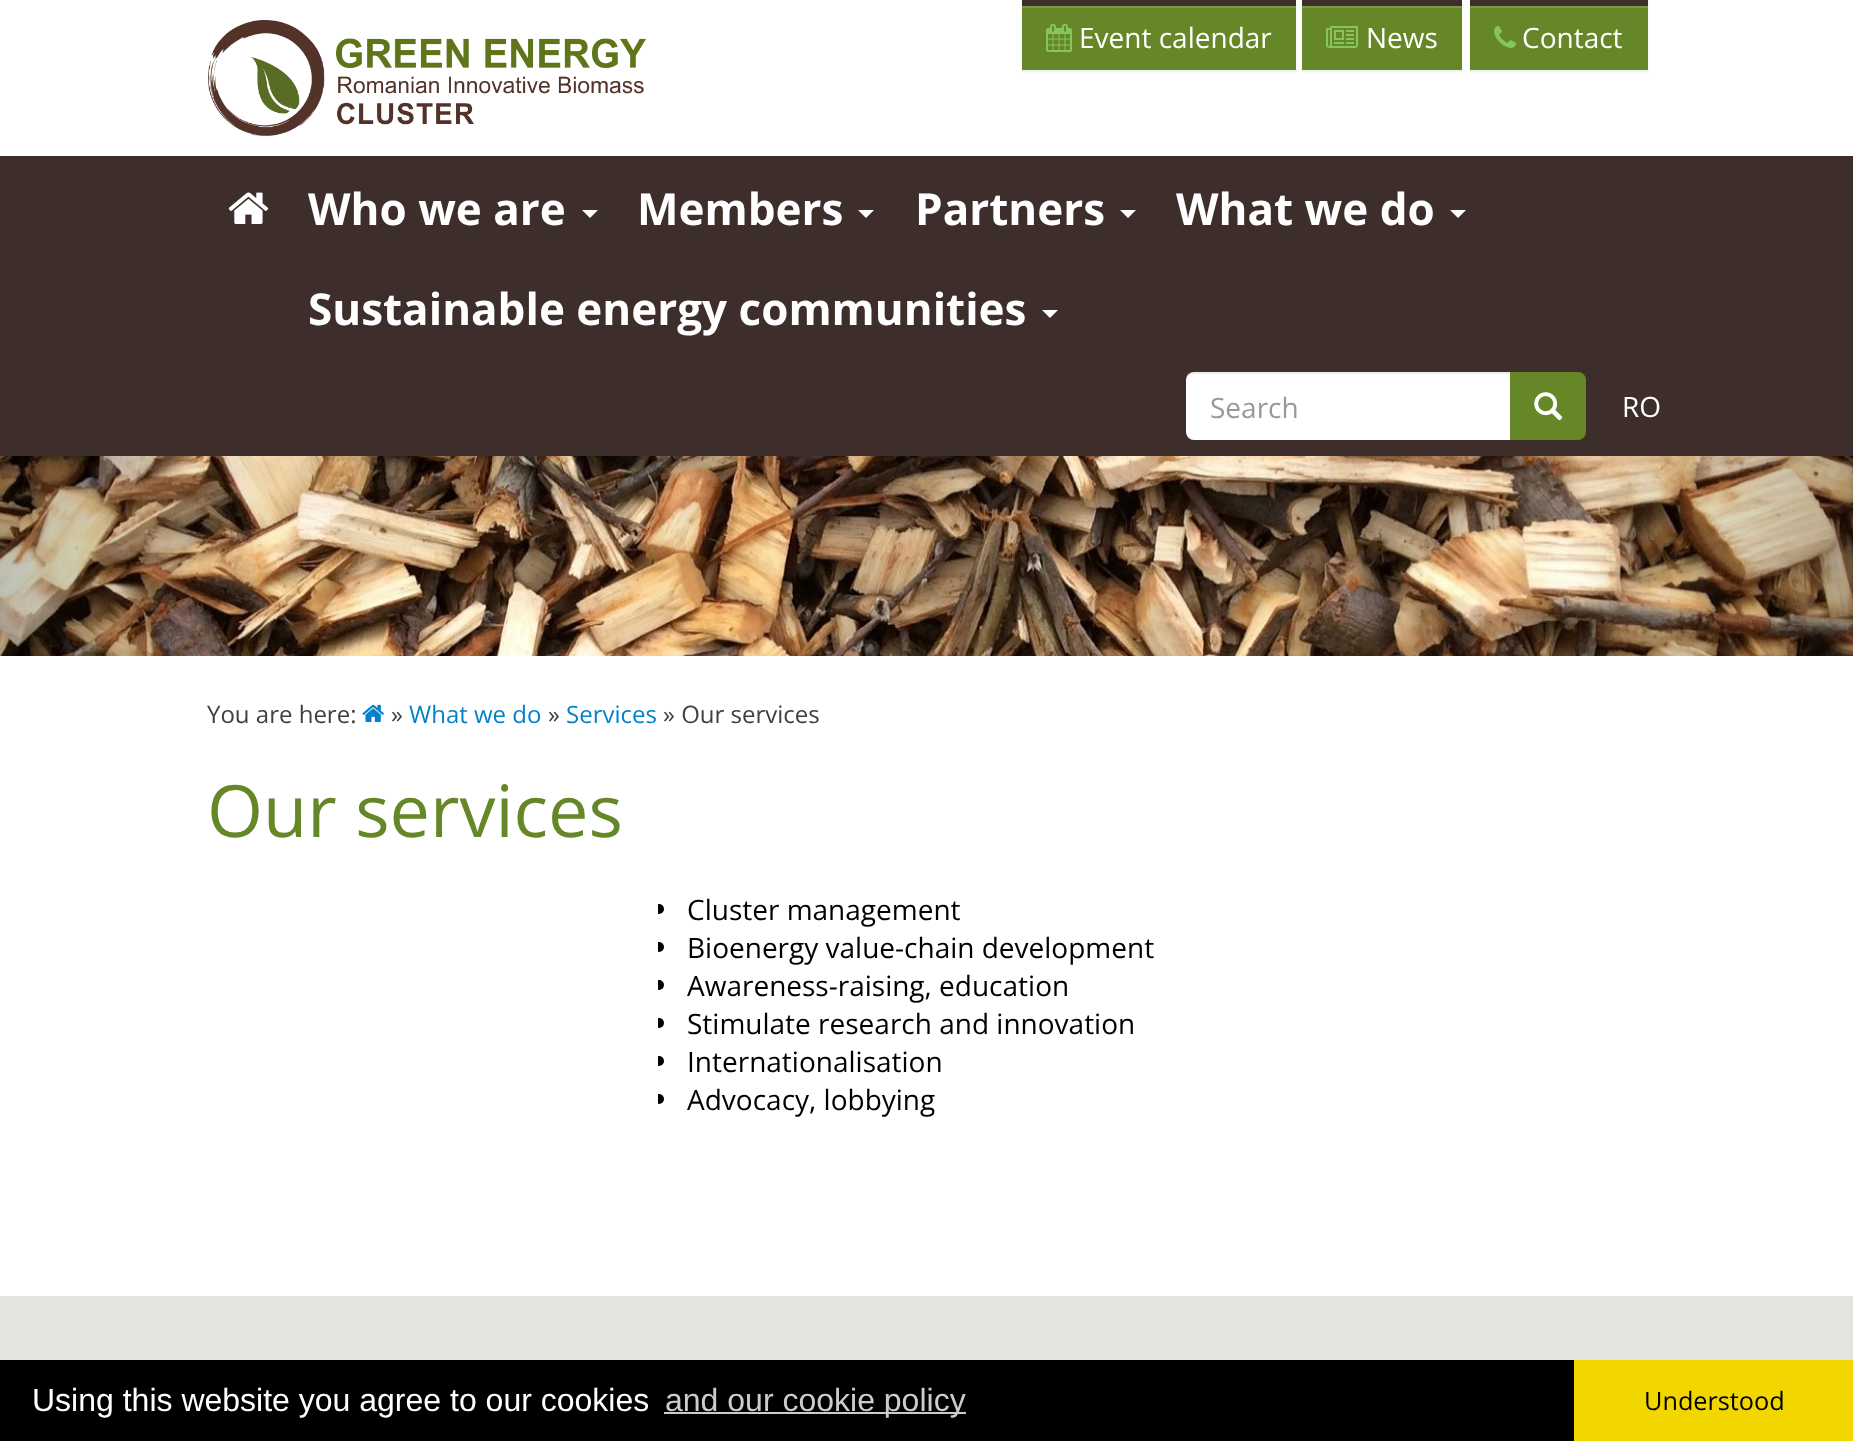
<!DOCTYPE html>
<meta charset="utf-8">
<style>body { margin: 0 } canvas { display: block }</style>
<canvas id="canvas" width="1853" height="1441"></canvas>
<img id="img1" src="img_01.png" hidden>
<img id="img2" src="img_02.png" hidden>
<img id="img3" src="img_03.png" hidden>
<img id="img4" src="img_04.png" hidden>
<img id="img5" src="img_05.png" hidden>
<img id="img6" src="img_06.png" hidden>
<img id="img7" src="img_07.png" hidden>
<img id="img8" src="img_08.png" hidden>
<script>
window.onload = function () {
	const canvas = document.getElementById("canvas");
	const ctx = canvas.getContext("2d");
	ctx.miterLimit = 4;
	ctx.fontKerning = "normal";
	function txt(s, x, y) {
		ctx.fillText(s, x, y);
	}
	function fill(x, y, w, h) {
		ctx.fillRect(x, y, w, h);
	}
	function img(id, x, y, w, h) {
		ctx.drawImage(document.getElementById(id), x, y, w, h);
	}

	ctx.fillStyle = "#FFFFFF";
	fill(0, 0, 1853, 1441);
	img("img1", 208, 20, 438, 116);
	ctx.fillStyle = "rgba(0, 0, 0, 0.07)";
	ctx.filter = "blur(1px)";
	ctx.beginPath();
	ctx.rect(1022, 2, 274, 70);
	ctx.fill();
	ctx.filter = "none";
	ctx.fillStyle = "#658728";
	fill(1022, 8, 274, 62);
	ctx.fillStyle = "#7C9948";
	fill(1022, 6, 274, 2);
	ctx.fillStyle = "#3D2E2B";
	fill(1022, 0, 274, 6);
	img("img2", 1046, 24, 26, 28);
	ctx.fillStyle = "rgba(0, 0, 0, 0.07)";
	ctx.filter = "blur(1px)";
	ctx.beginPath();
	ctx.rect(1302, 2, 160, 70);
	ctx.fill();
	ctx.filter = "none";
	ctx.fillStyle = "#658728";
	fill(1302, 8, 160, 62);
	ctx.fillStyle = "#7C9948";
	fill(1302, 6, 160, 2);
	ctx.fillStyle = "#3D2E2B";
	fill(1302, 0, 160, 6);
	img("img3", 1326, 26, 32, 22);
	ctx.fillStyle = "rgba(0, 0, 0, 0.07)";
	ctx.filter = "blur(1px)";
	ctx.beginPath();
	ctx.rect(1470, 2, 178, 70);
	ctx.fill();
	ctx.filter = "none";
	ctx.fillStyle = "#658728";
	fill(1470, 8, 178, 62);
	ctx.fillStyle = "#7C9948";
	fill(1470, 6, 178, 2);
	ctx.fillStyle = "#3D2E2B";
	fill(1470, 0, 178, 6);
	img("img4", 1494, 26, 22, 22);
	fill(0, 156, 1853, 300);
	img("img5", 228, 192, 41, 32);
	ctx.fillStyle = "#FFFFFF";
	ctx.beginPath();
	ctx.moveTo(582, 210);
	ctx.lineTo(598, 210);
	ctx.lineTo(590, 218);
	ctx.closePath();
	ctx.fill();
	ctx.beginPath();
	ctx.moveTo(858, 210);
	ctx.lineTo(874, 210);
	ctx.lineTo(866, 218);
	ctx.closePath();
	ctx.fill();
	ctx.beginPath();
	ctx.moveTo(1120, 210);
	ctx.lineTo(1136, 210);
	ctx.lineTo(1128, 218);
	ctx.closePath();
	ctx.fill();
	ctx.beginPath();
	ctx.moveTo(1450, 210);
	ctx.lineTo(1466, 210);
	ctx.lineTo(1458, 218);
	ctx.closePath();
	ctx.fill();
	ctx.beginPath();
	ctx.moveTo(1042, 310);
	ctx.lineTo(1058, 310);
	ctx.lineTo(1050, 318);
	ctx.closePath();
	ctx.fill();
	ctx.beginPath();
	ctx.roundRect(1186, 372, 324, 68, [8, 0, 0, 8]);
	ctx.fill();
	ctx.fillStyle = "rgba(0, 0, 0, 0.07)";
	ctx.beginPath();
	ctx.moveTo(1194, 374);
	ctx.lineTo(1510, 374);
	ctx.lineTo(1510, 372);
	ctx.lineTo(1194, 372);
	ctx.bezierCurveTo(1188, 372, 1186, 377, 1186, 382);
	ctx.bezierCurveTo(1186, 378, 1190, 374, 1194, 374);
	ctx.closePath();
	ctx.fill();
	ctx.fillStyle = "#658728";
	ctx.beginPath();
	ctx.roundRect(1510, 372, 76, 68, [0, 8, 8, 0]);
	ctx.fill();
	img("img6", 1534, 392, 29, 29);
	img("img7", 0, 456, 1853, 200);
	img("img8", 362, 704, 22, 18);
	ctx.fillStyle = "#000000";
	ctx.beginPath();
	ctx.arc(659, 909, 5, 0, Math.PI * 2);
	ctx.fill();
	ctx.beginPath();
	ctx.arc(659, 947, 5, 0, Math.PI * 2);
	ctx.fill();
	ctx.beginPath();
	ctx.arc(659, 985, 5, 0, Math.PI * 2);
	ctx.fill();
	ctx.beginPath();
	ctx.arc(659, 1023, 5, 0, Math.PI * 2);
	ctx.fill();
	ctx.beginPath();
	ctx.arc(659, 1061, 5, 0, Math.PI * 2);
	ctx.fill();
	ctx.beginPath();
	ctx.arc(659, 1099, 5, 0, Math.PI * 2);
	ctx.fill();
	ctx.fillStyle = "#FFFFFF";
	fill(654, 904, 4, 200);
	ctx.fillStyle = "#E5E3DF";
	fill(0, 1296, 1853, 64);
	ctx.fillStyle = "#000000";
	fill(0, 1360, 1574, 81);
	ctx.fillStyle = "#CCCCCC";
	fill(664, 1412, 302, 2);
	ctx.fillStyle = "#F1D600";
	fill(1574, 1360, 279, 81);
	ctx.font = "28px Open Sans";
	ctx.fillStyle = "#FFFFFF";
	txt("Event calendar", 1079, 48);
	txt("News", 1366, 48);
	txt("Contact", 1522, 48);
	ctx.font = "bold 44px Open Sans";
	txt("Who we are", 308, 225);
	txt("Members", 637, 225);
	txt("Partners", 915, 225);
	txt("What we do", 1176, 225);
	txt("Sustainable energy communities", 308, 325);
	ctx.font = "28px Open Sans";
	ctx.fillStyle = "#999999";
	txt("Search", 1210, 418);
	ctx.fillStyle = "#FFFFFF";
	txt("RO", 1622, 417);
	ctx.font = "24px Open Sans";
	ctx.fillStyle = "#404040";
	txt("You are here:", 207, 723);
	txt("»", 391, 723);
	ctx.fillStyle = "#0382CB";
	txt("What we do", 409, 723);
	ctx.fillStyle = "#404040";
	txt("»", 548, 723);
	ctx.fillStyle = "#0382CB";
	txt("Services", 566, 723);
	ctx.fillStyle = "#404040";
	txt("» Our services", 663, 723);
	ctx.font = "72px Open Sans";
	ctx.fillStyle = "#658728";
	txt("Our services", 207, 837);
	ctx.font = "28px Open Sans";
	ctx.fillStyle = "#000000";
	txt("Cluster management", 687, 920);
	txt("Bioenergy value-chain development", 687, 958);
	txt("Awareness-raising, education", 687, 996);
	txt("Stimulate research and innovation", 687, 1034);
	txt("Internationalisation", 687, 1072);
	txt("Advocacy, lobbying", 687, 1110);
	ctx.font = "32px Liberation Sans";
	ctx.fillStyle = "#FFFFFF";
	txt("Using this website you agree to our cookies", 32, 1411);
	ctx.fillStyle = "#CCCCCC";
	txt("and our cookie policy", 665, 1411);
	ctx.font = "25.25px Open Sans";
	ctx.fillStyle = "#000000";
	txt("Understood", 1644, 1410);
};
</script>
